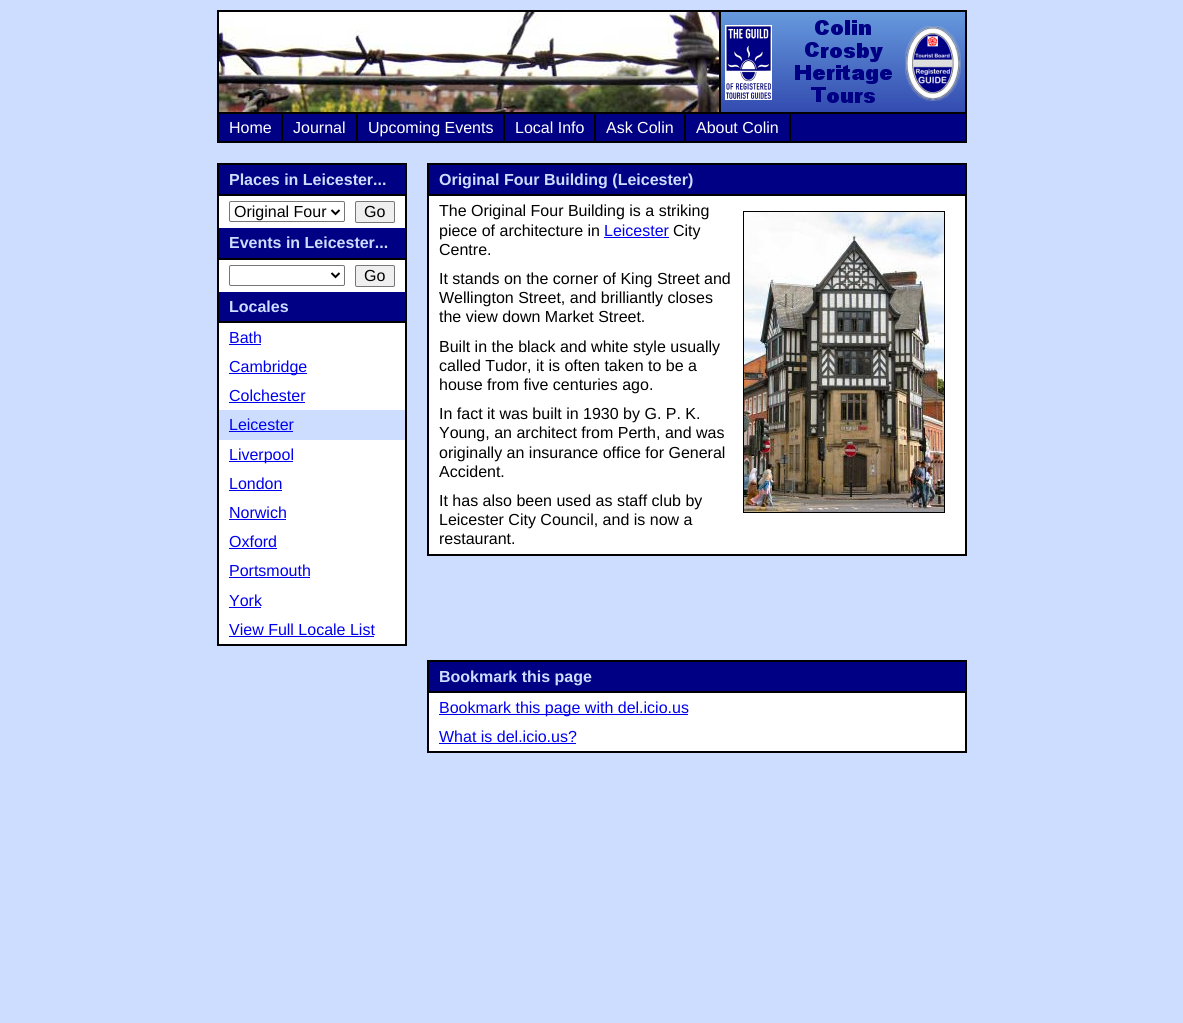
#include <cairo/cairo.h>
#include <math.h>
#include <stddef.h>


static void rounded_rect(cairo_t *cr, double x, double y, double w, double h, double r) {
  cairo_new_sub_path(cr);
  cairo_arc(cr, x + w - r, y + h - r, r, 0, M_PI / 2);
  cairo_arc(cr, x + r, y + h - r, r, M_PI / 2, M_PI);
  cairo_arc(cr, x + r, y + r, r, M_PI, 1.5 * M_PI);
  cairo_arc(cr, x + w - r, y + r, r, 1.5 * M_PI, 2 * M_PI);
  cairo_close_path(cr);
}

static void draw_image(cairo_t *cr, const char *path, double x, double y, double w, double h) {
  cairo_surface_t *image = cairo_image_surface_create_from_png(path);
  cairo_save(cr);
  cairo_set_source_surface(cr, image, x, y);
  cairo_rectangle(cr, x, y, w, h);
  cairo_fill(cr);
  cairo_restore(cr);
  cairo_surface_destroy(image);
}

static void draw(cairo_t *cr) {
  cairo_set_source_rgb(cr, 204 / 255.0, 221 / 255.0, 1);
  cairo_paint(cr);
  draw_image(cr, "images/1.png", 219, 12, 500, 100);
  cairo_set_source_rgb(cr, 0, 0, 0);
  cairo_rectangle(cr, 217, 10, 750, 2);
  cairo_fill(cr);
  cairo_rectangle(cr, 965, 10, 2, 102);
  cairo_fill(cr);
  cairo_rectangle(cr, 217, 10, 2, 102);
  cairo_fill(cr);
  draw_image(cr, "images/2.png", 721, 12, 244, 100);
  cairo_rectangle(cr, 719, 12, 2, 100);
  cairo_fill(cr);
  cairo_rectangle(cr, 218, 113, 748, 29);
  cairo_stroke(cr);
  cairo_set_source_rgb(cr, 0, 0, 132 / 255.0);
  cairo_rectangle(cr, 219, 114, 746, 27);
  cairo_fill(cr);
  cairo_set_source_rgb(cr, 0, 0, 0);
  cairo_rectangle(cr, 281, 114, 2, 27);
  cairo_fill(cr);
  cairo_rectangle(cr, 356, 114, 2, 27);
  cairo_fill(cr);
  cairo_rectangle(cr, 503, 114, 2, 27);
  cairo_fill(cr);
  cairo_rectangle(cr, 594, 114, 2, 27);
  cairo_fill(cr);
  cairo_rectangle(cr, 684, 114, 2, 27);
  cairo_fill(cr);
  cairo_rectangle(cr, 789, 114, 2, 27);
  cairo_fill(cr);
  cairo_rectangle(cr, 218, 164, 188, 481);
  cairo_stroke(cr);
  cairo_set_source_rgb(cr, 0, 0, 132 / 255.0);
  cairo_rectangle(cr, 219, 165, 186, 29);
  cairo_fill(cr);
  cairo_set_source_rgb(cr, 0, 0, 0);
  cairo_rectangle(cr, 219, 194, 186, 2);
  cairo_fill(cr);
  cairo_set_source_rgb(cr, 1, 1, 1);
  cairo_rectangle(cr, 219, 196, 186, 32);
  cairo_fill(cr);
  rounded_rect(cr, 229.5, 201.5, 115, 20, 1.5);
  cairo_set_source_rgb(cr, 118 / 255.0, 118 / 255.0, 118 / 255.0);
  cairo_set_line_width(cr, 1);
  cairo_stroke(cr);
  cairo_new_path(cr);
  cairo_move_to(cr, 331.5, 210);
  cairo_line_to(cr, 335.5, 214);
  cairo_line_to(cr, 339.5, 210);
  cairo_set_source_rgb(cr, 0, 0, 0);
  cairo_set_line_width(cr, 2);
  cairo_stroke(cr);
  cairo_set_source_rgb(cr, 239 / 255.0, 239 / 255.0, 239 / 255.0);
  rounded_rect(cr, 355.5, 201.5, 39, 21, 1.5);
  cairo_fill_preserve(cr);
  cairo_set_source_rgb(cr, 118 / 255.0, 118 / 255.0, 118 / 255.0);
  cairo_set_line_width(cr, 1);
  cairo_stroke(cr);
  cairo_set_source_rgb(cr, 0, 0, 132 / 255.0);
  cairo_rectangle(cr, 219, 228, 186, 30);
  cairo_fill(cr);
  cairo_set_source_rgb(cr, 0, 0, 0);
  cairo_rectangle(cr, 219, 258, 186, 2);
  cairo_fill(cr);
  cairo_set_source_rgb(cr, 1, 1, 1);
  cairo_rectangle(cr, 219, 260, 186, 32);
  cairo_fill(cr);
  rounded_rect(cr, 229.5, 265.5, 115, 20, 1.5);
  cairo_set_source_rgb(cr, 118 / 255.0, 118 / 255.0, 118 / 255.0);
  cairo_stroke(cr);
  cairo_new_path(cr);
  cairo_move_to(cr, 331.5, 273);
  cairo_line_to(cr, 335.5, 277);
  cairo_line_to(cr, 339.5, 273);
  cairo_set_source_rgb(cr, 0, 0, 0);
  cairo_set_line_width(cr, 2);
  cairo_stroke(cr);
  cairo_set_source_rgb(cr, 239 / 255.0, 239 / 255.0, 239 / 255.0);
  rounded_rect(cr, 355.5, 265.5, 39, 21, 1.5);
  cairo_fill_preserve(cr);
  cairo_set_source_rgb(cr, 118 / 255.0, 118 / 255.0, 118 / 255.0);
  cairo_set_line_width(cr, 1);
  cairo_stroke(cr);
  cairo_set_source_rgb(cr, 0, 0, 132 / 255.0);
  cairo_rectangle(cr, 219, 292, 186, 29);
  cairo_fill(cr);
  cairo_set_source_rgb(cr, 0, 0, 0);
  cairo_rectangle(cr, 219, 321, 186, 2);
  cairo_fill(cr);
  cairo_set_source_rgb(cr, 1, 1, 1);
  cairo_rectangle(cr, 219, 323, 186, 321);
  cairo_fill(cr);
  cairo_set_source_rgb(cr, 0, 0, 238 / 255.0);
  cairo_rectangle(cr, 229, 344, 32, 1);
  cairo_fill(cr);
  cairo_rectangle(cr, 229, 373, 78, 1);
  cairo_fill(cr);
  cairo_rectangle(cr, 229, 402, 76, 1);
  cairo_fill(cr);
  cairo_set_source_rgb(cr, 204 / 255.0, 221 / 255.0, 1);
  cairo_rectangle(cr, 219, 410, 186, 30);
  cairo_fill(cr);
  cairo_set_source_rgb(cr, 0, 0, 238 / 255.0);
  cairo_rectangle(cr, 229, 431, 64, 1);
  cairo_fill(cr);
  cairo_rectangle(cr, 229, 461, 64, 1);
  cairo_fill(cr);
  cairo_rectangle(cr, 229, 490, 53, 1);
  cairo_fill(cr);
  cairo_rectangle(cr, 229, 519, 57, 1);
  cairo_fill(cr);
  cairo_rectangle(cr, 229, 548, 48, 1);
  cairo_fill(cr);
  cairo_rectangle(cr, 229, 577, 81, 1);
  cairo_fill(cr);
  cairo_rectangle(cr, 229, 607, 32, 1);
  cairo_fill(cr);
  cairo_rectangle(cr, 229, 636, 145, 1);
  cairo_fill(cr);
  cairo_set_source_rgb(cr, 1, 1, 1);
  cairo_rectangle(cr, 429, 196, 536, 358);
  cairo_fill(cr);
  cairo_rectangle(cr, 428, 164, 538, 391);
  cairo_set_source_rgb(cr, 0, 0, 0);
  cairo_set_line_width(cr, 2);
  cairo_stroke(cr);
  cairo_set_source_rgb(cr, 0, 0, 132 / 255.0);
  cairo_rectangle(cr, 429, 165, 536, 29);
  cairo_fill(cr);
  cairo_set_source_rgb(cr, 0, 0, 0);
  cairo_rectangle(cr, 429, 194, 536, 2);
  cairo_fill(cr);
  cairo_rectangle(cr, 743.5, 211.5, 201, 301);
  cairo_set_line_width(cr, 1);
  cairo_stroke(cr);
  draw_image(cr, "images/3.png", 744, 212, 200, 300);
  cairo_set_source_rgb(cr, 0, 0, 238 / 255.0);
  cairo_rectangle(cr, 604, 237, 65, 1);
  cairo_fill(cr);
  cairo_set_source_rgb(cr, 1, 1, 1);
  cairo_rectangle(cr, 429, 693, 536, 58);
  cairo_fill(cr);
  cairo_rectangle(cr, 428, 661, 538, 91);
  cairo_set_source_rgb(cr, 0, 0, 0);
  cairo_set_line_width(cr, 2);
  cairo_stroke(cr);
  cairo_set_source_rgb(cr, 0, 0, 132 / 255.0);
  cairo_rectangle(cr, 429, 662, 536, 29);
  cairo_fill(cr);
  cairo_set_source_rgb(cr, 0, 0, 0);
  cairo_rectangle(cr, 429, 691, 536, 2);
  cairo_fill(cr);
  cairo_set_source_rgb(cr, 0, 0, 238 / 255.0);
  cairo_rectangle(cr, 439, 714, 249, 1);
  cairo_fill(cr);
  cairo_rectangle(cr, 439, 743, 137, 1);
  cairo_fill(cr);
  cairo_select_font_face(cr, "Liberation Sans", CAIRO_FONT_SLANT_NORMAL, CAIRO_FONT_WEIGHT_NORMAL);
  cairo_set_font_size(cr, 16);
  cairo_set_source_rgb(cr, 1, 1, 1);
  cairo_move_to(cr, 229, 133);
  cairo_show_text(cr, "Home");
  cairo_move_to(cr, 293, 133);
  cairo_show_text(cr, "Journal");
  cairo_move_to(cr, 368, 133);
  cairo_show_text(cr, "Upcoming Events");
  cairo_move_to(cr, 515, 133);
  cairo_show_text(cr, "Local Info");
  cairo_move_to(cr, 606, 133);
  cairo_show_text(cr, "Ask Colin");
  cairo_move_to(cr, 696, 133);
  cairo_show_text(cr, "About Colin");
  cairo_select_font_face(cr, "Liberation Sans", CAIRO_FONT_SLANT_NORMAL, CAIRO_FONT_WEIGHT_BOLD);
  cairo_set_source_rgb(cr, 204 / 255.0, 221 / 255.0, 1);
  cairo_move_to(cr, 229, 185);
  cairo_show_text(cr, "Places in Leicester...");
  cairo_select_font_face(cr, "Liberation Sans", CAIRO_FONT_SLANT_NORMAL, CAIRO_FONT_WEIGHT_NORMAL);
  cairo_set_source_rgb(cr, 0, 0, 0);
  cairo_move_to(cr, 234, 217);
  cairo_show_text(cr, "Original Four");
  cairo_move_to(cr, 364, 217);
  cairo_show_text(cr, "Go");
  cairo_select_font_face(cr, "Liberation Sans", CAIRO_FONT_SLANT_NORMAL, CAIRO_FONT_WEIGHT_BOLD);
  cairo_set_source_rgb(cr, 204 / 255.0, 221 / 255.0, 1);
  cairo_move_to(cr, 229, 248);
  cairo_show_text(cr, "Events in Leicester...");
  cairo_select_font_face(cr, "Liberation Sans", CAIRO_FONT_SLANT_NORMAL, CAIRO_FONT_WEIGHT_NORMAL);
  cairo_set_source_rgb(cr, 0, 0, 0);
  cairo_move_to(cr, 364, 281);
  cairo_show_text(cr, "Go");
  cairo_select_font_face(cr, "Liberation Sans", CAIRO_FONT_SLANT_NORMAL, CAIRO_FONT_WEIGHT_BOLD);
  cairo_set_source_rgb(cr, 204 / 255.0, 221 / 255.0, 1);
  cairo_move_to(cr, 229, 312);
  cairo_show_text(cr, "Locales");
  cairo_select_font_face(cr, "Liberation Sans", CAIRO_FONT_SLANT_NORMAL, CAIRO_FONT_WEIGHT_NORMAL);
  cairo_set_source_rgb(cr, 0, 0, 238 / 255.0);
  cairo_move_to(cr, 229, 343);
  cairo_show_text(cr, "Bath");
  cairo_move_to(cr, 229, 372);
  cairo_show_text(cr, "Cambridge");
  cairo_move_to(cr, 229, 401);
  cairo_show_text(cr, "Colchester");
  cairo_move_to(cr, 229, 430);
  cairo_show_text(cr, "Leicester");
  cairo_move_to(cr, 229, 460);
  cairo_show_text(cr, "Liverpool");
  cairo_move_to(cr, 229, 489);
  cairo_show_text(cr, "London");
  cairo_move_to(cr, 229, 518);
  cairo_show_text(cr, "Norwich");
  cairo_move_to(cr, 229, 547);
  cairo_show_text(cr, "Oxford");
  cairo_move_to(cr, 229, 576);
  cairo_show_text(cr, "Portsmouth");
  cairo_move_to(cr, 229, 606);
  cairo_show_text(cr, "York");
  cairo_move_to(cr, 229, 635);
  cairo_show_text(cr, "View Full Locale List");
  cairo_select_font_face(cr, "Liberation Sans", CAIRO_FONT_SLANT_NORMAL, CAIRO_FONT_WEIGHT_BOLD);
  cairo_set_source_rgb(cr, 204 / 255.0, 221 / 255.0, 1);
  cairo_move_to(cr, 439, 185);
  cairo_show_text(cr, "Original Four Building (Leicester)");
  cairo_select_font_face(cr, "Liberation Sans", CAIRO_FONT_SLANT_NORMAL, CAIRO_FONT_WEIGHT_NORMAL);
  cairo_set_source_rgb(cr, 0, 0, 0);
  cairo_move_to(cr, 439, 216);
  cairo_show_text(cr, "The Original Four Building is a striking");
  cairo_move_to(cr, 439, 236);
  cairo_show_text(cr, "piece of architecture in");
  cairo_set_source_rgb(cr, 0, 0, 238 / 255.0);
  cairo_move_to(cr, 604, 236);
  cairo_show_text(cr, "Leicester");
  cairo_set_source_rgb(cr, 0, 0, 0);
  cairo_move_to(cr, 673, 236);
  cairo_show_text(cr, "City");
  cairo_move_to(cr, 439, 255);
  cairo_show_text(cr, "Centre.");
  cairo_move_to(cr, 439, 284);
  cairo_show_text(cr, "It stands on the corner of King Street and");
  cairo_move_to(cr, 439, 303);
  cairo_show_text(cr, "Wellington Street, and brilliantly closes");
  cairo_move_to(cr, 439, 322);
  cairo_show_text(cr, "the view down Market Street.");
  cairo_move_to(cr, 439, 352);
  cairo_show_text(cr, "Built in the black and white style usually");
  cairo_move_to(cr, 439, 371);
  cairo_show_text(cr, "called Tudor, it is often taken to be a");
  cairo_move_to(cr, 439, 390);
  cairo_show_text(cr, "house from five centuries ago.");
  cairo_move_to(cr, 439, 419);
  cairo_show_text(cr, "In fact it was built in 1930 by G. P. K.");
  cairo_move_to(cr, 439, 438);
  cairo_show_text(cr, "Young, an architect from Perth, and was");
  cairo_move_to(cr, 439, 458);
  cairo_show_text(cr, "originally an insurance office for General");
  cairo_move_to(cr, 439, 477);
  cairo_show_text(cr, "Accident.");
  cairo_move_to(cr, 439, 506);
  cairo_show_text(cr, "It has also been used as staff club by");
  cairo_move_to(cr, 439, 525);
  cairo_show_text(cr, "Leicester City Council, and is now a");
  cairo_move_to(cr, 439, 544);
  cairo_show_text(cr, "restaurant.");
  cairo_select_font_face(cr, "Liberation Sans", CAIRO_FONT_SLANT_NORMAL, CAIRO_FONT_WEIGHT_BOLD);
  cairo_set_source_rgb(cr, 204 / 255.0, 221 / 255.0, 1);
  cairo_move_to(cr, 439, 682);
  cairo_show_text(cr, "Bookmark this page");
  cairo_select_font_face(cr, "Liberation Sans", CAIRO_FONT_SLANT_NORMAL, CAIRO_FONT_WEIGHT_NORMAL);
  cairo_set_source_rgb(cr, 0, 0, 238 / 255.0);
  cairo_move_to(cr, 439, 713);
  cairo_show_text(cr, "Bookmark this page with del.icio.us");
  cairo_move_to(cr, 439, 742);
  cairo_show_text(cr, "What is del.icio.us?");
}

int main(void) {
  cairo_surface_t *surface = cairo_image_surface_create(CAIRO_FORMAT_RGB24, 1183, 1023);
  cairo_t *cr = cairo_create(surface);
  cairo_font_options_t *options = cairo_font_options_create();
  cairo_font_options_set_hint_metrics(options, CAIRO_HINT_METRICS_OFF);
  cairo_font_options_set_hint_style(options, CAIRO_HINT_STYLE_NONE);
  cairo_set_font_options(cr, options);
  cairo_set_miter_limit(cr, 4);
  draw(cr);
  cairo_surface_write_to_png(surface, "out.png");
  cairo_font_options_destroy(options);
  cairo_destroy(cr);
  cairo_surface_destroy(surface);
  return 0;
}
